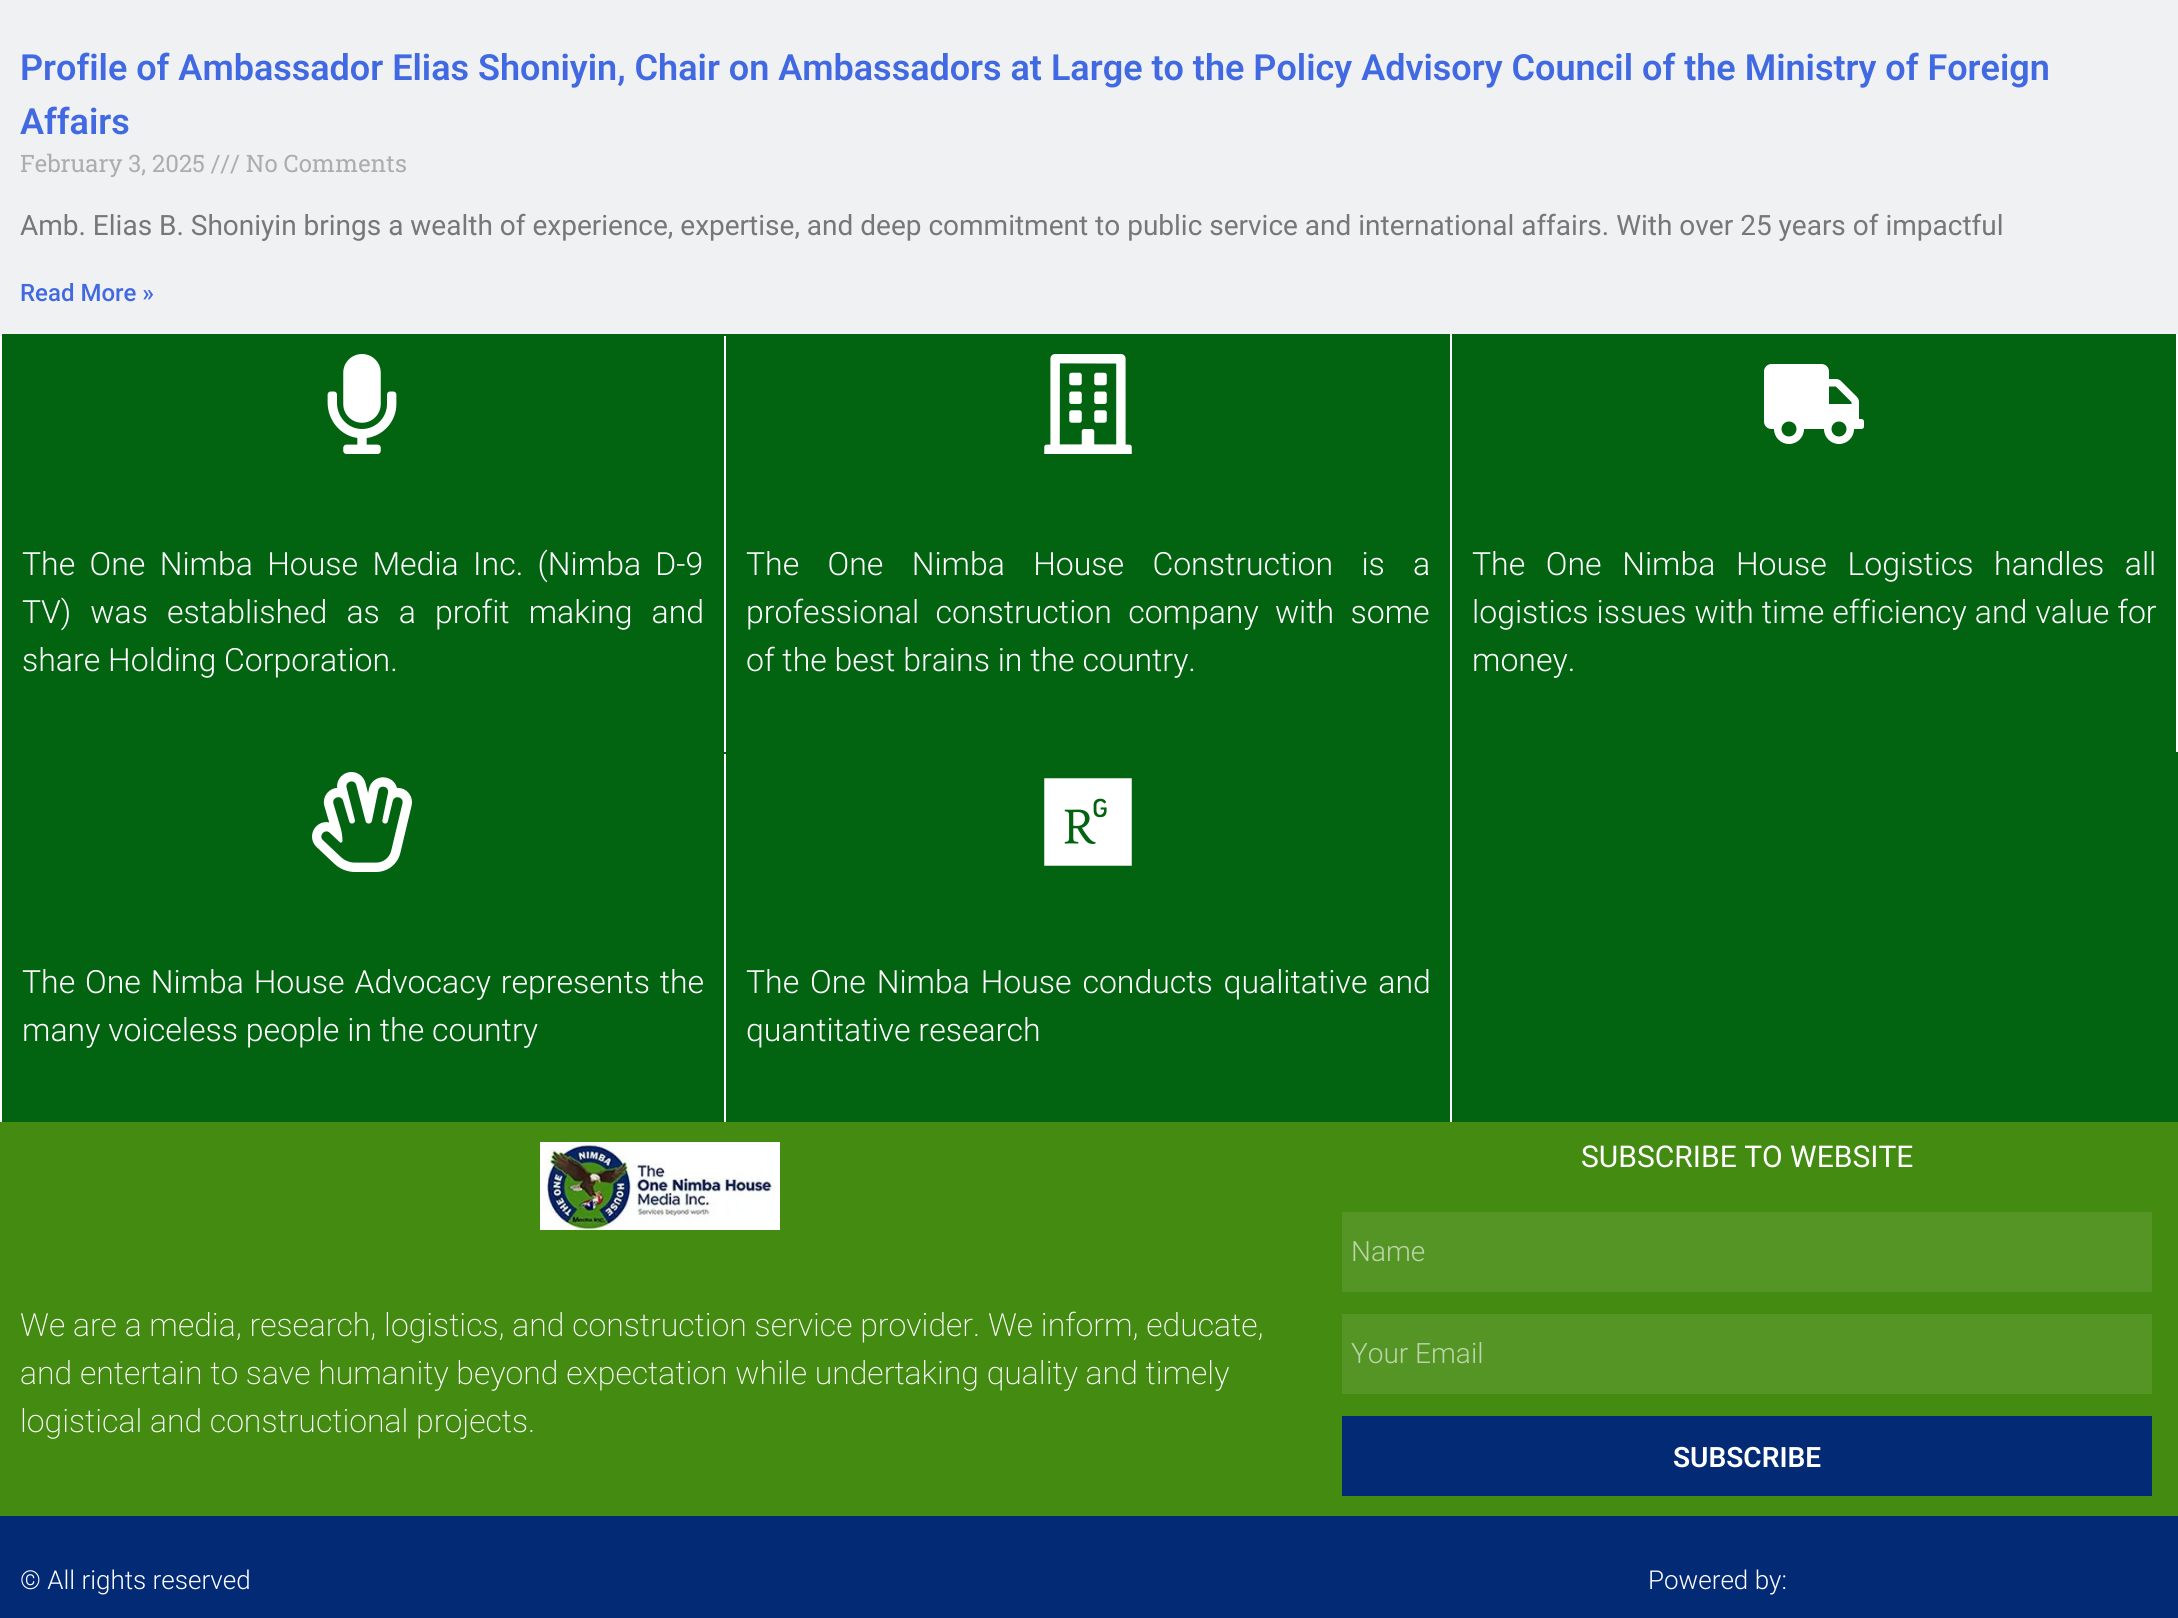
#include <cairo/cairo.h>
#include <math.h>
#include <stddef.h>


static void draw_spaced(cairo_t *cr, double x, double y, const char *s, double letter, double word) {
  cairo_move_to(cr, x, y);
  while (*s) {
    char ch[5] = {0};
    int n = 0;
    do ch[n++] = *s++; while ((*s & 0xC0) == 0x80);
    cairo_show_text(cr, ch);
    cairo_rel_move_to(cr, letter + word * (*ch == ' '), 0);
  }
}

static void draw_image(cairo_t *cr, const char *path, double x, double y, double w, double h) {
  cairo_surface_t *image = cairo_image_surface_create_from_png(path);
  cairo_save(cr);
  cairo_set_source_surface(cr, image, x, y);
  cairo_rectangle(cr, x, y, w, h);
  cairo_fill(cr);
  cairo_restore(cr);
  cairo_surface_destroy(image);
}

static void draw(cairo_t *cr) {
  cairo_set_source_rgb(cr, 240 / 255.0, 241 / 255.0, 242 / 255.0);
  cairo_paint(cr);
  cairo_set_source_rgb(cr, 2 / 255.0, 99 / 255.0, 17 / 255.0);
  cairo_rectangle(cr, 2, 334, 2174, 418);
  cairo_fill(cr);
  cairo_set_source_rgb(cr, 1, 1, 1);
  cairo_rectangle(cr, 724, 336, 2, 416);
  cairo_fill(cr);
  cairo_rectangle(cr, 0, 334, 2, 788);
  cairo_fill(cr);
  draw_image(cr, "images/1.png", 327, 354, 70, 100);
  cairo_rectangle(cr, 1450, 334, 2, 418);
  cairo_fill(cr);
  draw_image(cr, "images/2.png", 1044, 354, 88, 100);
  cairo_rectangle(cr, 2176, 334, 2, 418);
  cairo_fill(cr);
  draw_image(cr, "images/3.png", 1764, 364, 100, 80);
  cairo_set_source_rgb(cr, 2 / 255.0, 99 / 255.0, 17 / 255.0);
  cairo_rectangle(cr, 2, 752, 2176, 370);
  cairo_fill(cr);
  cairo_set_source_rgb(cr, 1, 1, 1);
  cairo_rectangle(cr, 724, 754, 2, 368);
  cairo_fill(cr);
  draw_image(cr, "images/4.png", 312, 772, 100, 100);
  cairo_rectangle(cr, 1450, 752, 2, 370);
  cairo_fill(cr);
  draw_image(cr, "images/5.png", 1044, 778, 88, 88);
  cairo_set_source_rgb(cr, 68 / 255.0, 139 / 255.0, 17 / 255.0);
  cairo_rectangle(cr, 0, 1122, 2178, 394);
  cairo_fill(cr);
  draw_image(cr, "images/6.png", 540, 1142, 240, 88);
  cairo_set_source_rgb(cr, 85 / 255.0, 149 / 255.0, 38 / 255.0);
  cairo_rectangle(cr, 1342, 1212, 810, 80);
  cairo_fill(cr);
  cairo_rectangle(cr, 1342, 1314, 810, 80);
  cairo_fill(cr);
  cairo_set_source_rgb(cr, 3 / 255.0, 42 / 255.0, 117 / 255.0);
  cairo_rectangle(cr, 1342, 1416, 810, 80);
  cairo_fill(cr);
  cairo_rectangle(cr, 0, 1516, 2178, 102);
  cairo_fill(cr);
  cairo_select_font_face(cr, "Roboto SemiBold", CAIRO_FONT_SLANT_NORMAL, CAIRO_FONT_WEIGHT_NORMAL);
  cairo_set_font_size(cr, 36);
  cairo_set_source_rgb(cr, 65 / 255.0, 105 / 255.0, 225 / 255.0);
  cairo_move_to(cr, 20, 80);
  cairo_show_text(cr, "Profile of Ambassador Elias Shoniyin, Chair on Ambassadors at Large to the Policy Advisory Council of the Ministry of Foreign");
  cairo_move_to(cr, 20, 134);
  cairo_show_text(cr, "Affairs");
  cairo_select_font_face(cr, "Roboto Slab", CAIRO_FONT_SLANT_NORMAL, CAIRO_FONT_WEIGHT_NORMAL);
  cairo_set_font_size(cr, 24);
  cairo_set_source_rgb(cr, 173 / 255.0, 173 / 255.0, 173 / 255.0);
  cairo_move_to(cr, 20, 172);
  cairo_show_text(cr, "February 3, 2025 /// No Comments");
  cairo_select_font_face(cr, "Roboto", CAIRO_FONT_SLANT_NORMAL, CAIRO_FONT_WEIGHT_NORMAL);
  cairo_set_font_size(cr, 28);
  cairo_set_source_rgb(cr, 119 / 255.0, 119 / 255.0, 119 / 255.0);
  cairo_move_to(cr, 20, 235);
  cairo_show_text(cr, "Amb. Elias B. Shoniyin brings a wealth of experience, expertise, and deep commitment to public service and international affairs. With over 25 years of impactful");
  cairo_select_font_face(cr, "Roboto Medium", CAIRO_FONT_SLANT_NORMAL, CAIRO_FONT_WEIGHT_NORMAL);
  cairo_set_font_size(cr, 24);
  cairo_set_source_rgb(cr, 65 / 255.0, 105 / 255.0, 225 / 255.0);
  cairo_move_to(cr, 20, 301);
  cairo_show_text(cr, "Read More »");
  cairo_select_font_face(cr, "Roboto Light", CAIRO_FONT_SLANT_NORMAL, CAIRO_FONT_WEIGHT_NORMAL);
  cairo_set_font_size(cr, 32);
  cairo_set_source_rgb(cr, 1, 1, 1);
  draw_spaced(cr, 22, 575, "The One Nimba House Media Inc. (Nimba D-9", 0, 6.5);
  draw_spaced(cr, 22, 623, "TV) was established as a profit making and", 0, 11.25);
  cairo_move_to(cr, 22, 671);
  cairo_show_text(cr, "share Holding Corporation.");
  draw_spaced(cr, 746, 575, "The One Nimba House Construction is a", 0, 20.5);
  draw_spaced(cr, 746, 623, "professional construction company with some", 0, 8.5);
  cairo_move_to(cr, 746, 671);
  cairo_show_text(cr, "of the best brains in the country.");
  draw_spaced(cr, 1472, 575, "The One Nimba House Logistics handles all", 0, 12.75);
  draw_spaced(cr, 1472, 623, "logistics issues with time efficiency and value for", 0, 0.25);
  cairo_move_to(cr, 1472, 671);
  cairo_show_text(cr, "money.");
  draw_spaced(cr, 22, 993, "The One Nimba House Advocacy represents the", 0, 2);
  cairo_move_to(cr, 22, 1041);
  cairo_show_text(cr, "many voiceless people in the country");
  draw_spaced(cr, 746, 993, "The One Nimba House conducts qualitative and", 0, 3);
  cairo_move_to(cr, 746, 1041);
  cairo_show_text(cr, "quantitative research");
  cairo_select_font_face(cr, "Roboto ExtraLight", CAIRO_FONT_SLANT_NORMAL, CAIRO_FONT_WEIGHT_NORMAL);
  cairo_move_to(cr, 20, 1336);
  cairo_show_text(cr, "We are a media, research, logistics, and construction service provider. We inform, educate,");
  cairo_move_to(cr, 20, 1384);
  cairo_show_text(cr, "and entertain to save humanity beyond expectation while undertaking quality and timely");
  cairo_move_to(cr, 20, 1432);
  cairo_show_text(cr, "logistical and constructional projects.");
  cairo_select_font_face(cr, "Roboto", CAIRO_FONT_SLANT_NORMAL, CAIRO_FONT_WEIGHT_NORMAL);
  cairo_set_font_size(cr, 30);
  cairo_move_to(cr, 1581, 1167);
  cairo_show_text(cr, "SUBSCRIBE TO WEBSITE");
  cairo_select_font_face(cr, "Roboto Light", CAIRO_FONT_SLANT_NORMAL, CAIRO_FONT_WEIGHT_NORMAL);
  cairo_set_font_size(cr, 28);
  cairo_set_source_rgb(cr, 187 / 255.0, 213 / 255.0, 168 / 255.0);
  cairo_move_to(cr, 1351, 1261);
  cairo_show_text(cr, "Name");
  cairo_move_to(cr, 1351, 1363);
  cairo_show_text(cr, "Your Email");
  cairo_select_font_face(cr, "Roboto SemiBold", CAIRO_FONT_SLANT_NORMAL, CAIRO_FONT_WEIGHT_NORMAL);
  cairo_set_source_rgb(cr, 1, 1, 1);
  cairo_move_to(cr, 1673, 1467);
  cairo_show_text(cr, "SUBSCRIBE");
  cairo_select_font_face(cr, "Roboto Light", CAIRO_FONT_SLANT_NORMAL, CAIRO_FONT_WEIGHT_NORMAL);
  cairo_set_font_size(cr, 26);
  cairo_move_to(cr, 20, 1589);
  cairo_show_text(cr, "© All rights reserved");
  cairo_move_to(cr, 1648, 1589);
  cairo_show_text(cr, "Powered by:");
}

int main(void) {
  cairo_surface_t *surface = cairo_image_surface_create(CAIRO_FORMAT_RGB24, 2178, 1618);
  cairo_t *cr = cairo_create(surface);
  cairo_font_options_t *options = cairo_font_options_create();
  cairo_font_options_set_hint_metrics(options, CAIRO_HINT_METRICS_OFF);
  cairo_font_options_set_hint_style(options, CAIRO_HINT_STYLE_NONE);
  cairo_set_font_options(cr, options);
  cairo_set_miter_limit(cr, 4);
  draw(cr);
  cairo_surface_write_to_png(surface, "out.png");
  cairo_font_options_destroy(options);
  cairo_destroy(cr);
  cairo_surface_destroy(surface);
  return 0;
}
